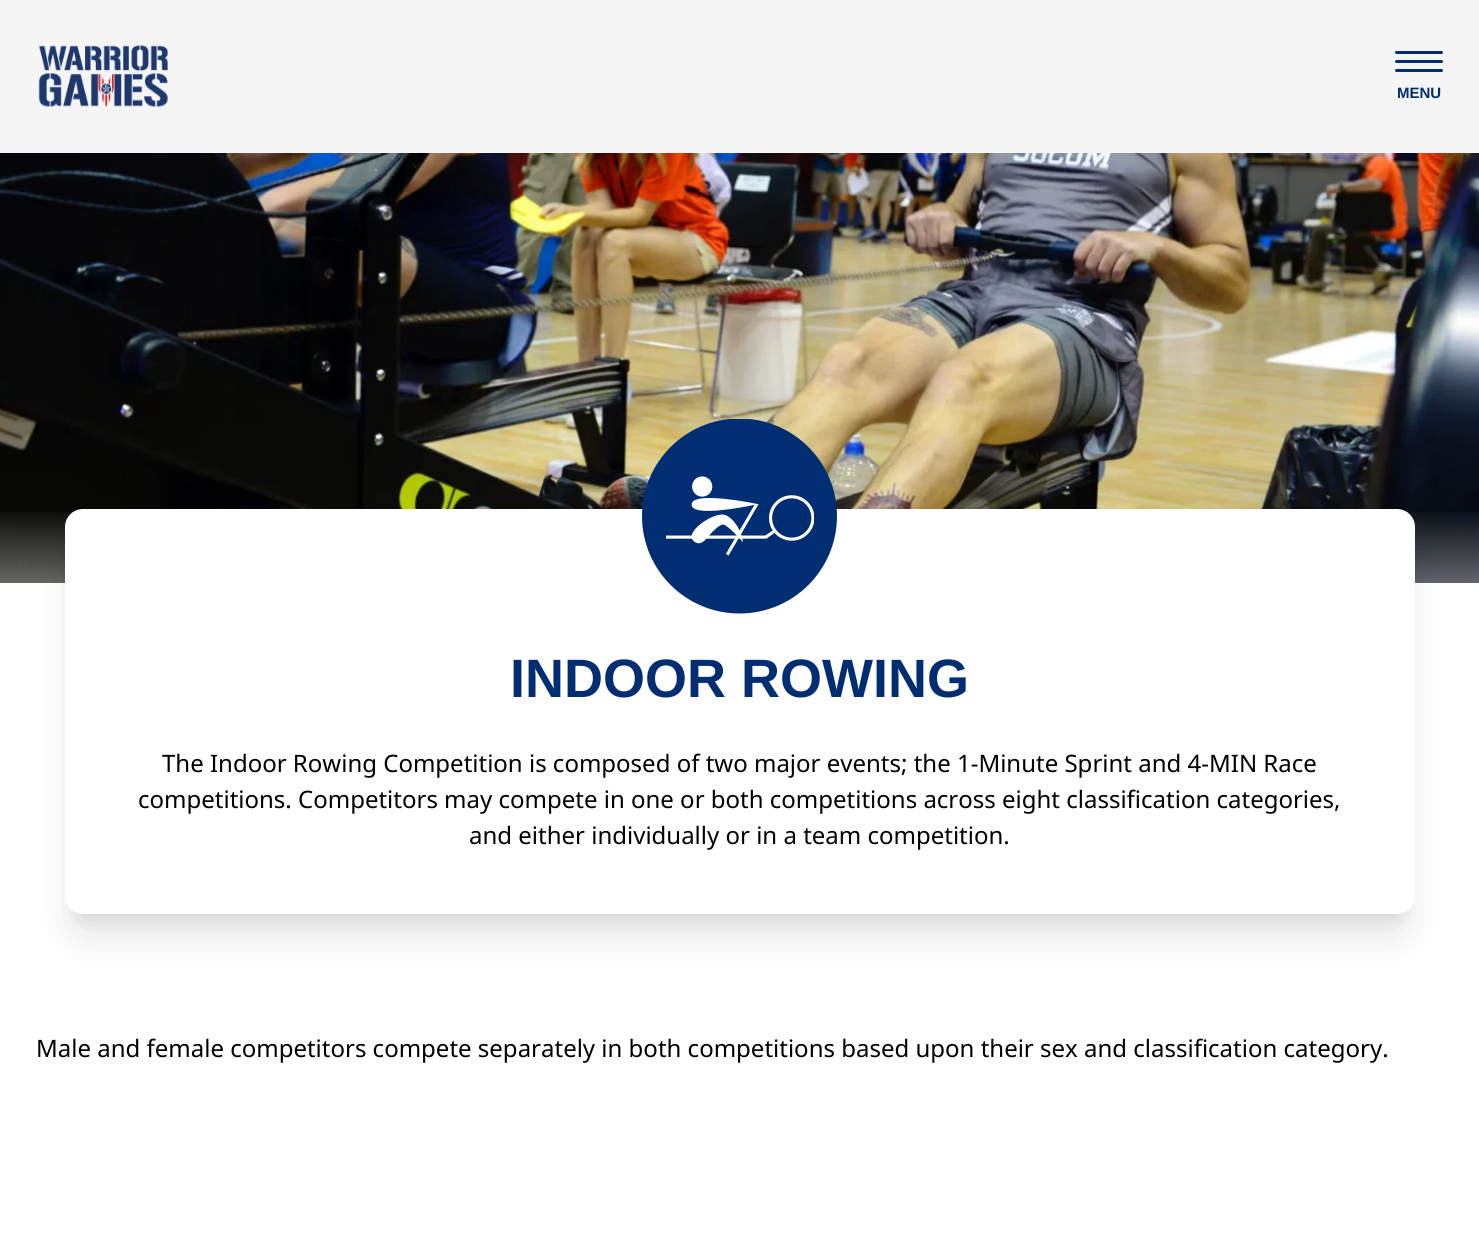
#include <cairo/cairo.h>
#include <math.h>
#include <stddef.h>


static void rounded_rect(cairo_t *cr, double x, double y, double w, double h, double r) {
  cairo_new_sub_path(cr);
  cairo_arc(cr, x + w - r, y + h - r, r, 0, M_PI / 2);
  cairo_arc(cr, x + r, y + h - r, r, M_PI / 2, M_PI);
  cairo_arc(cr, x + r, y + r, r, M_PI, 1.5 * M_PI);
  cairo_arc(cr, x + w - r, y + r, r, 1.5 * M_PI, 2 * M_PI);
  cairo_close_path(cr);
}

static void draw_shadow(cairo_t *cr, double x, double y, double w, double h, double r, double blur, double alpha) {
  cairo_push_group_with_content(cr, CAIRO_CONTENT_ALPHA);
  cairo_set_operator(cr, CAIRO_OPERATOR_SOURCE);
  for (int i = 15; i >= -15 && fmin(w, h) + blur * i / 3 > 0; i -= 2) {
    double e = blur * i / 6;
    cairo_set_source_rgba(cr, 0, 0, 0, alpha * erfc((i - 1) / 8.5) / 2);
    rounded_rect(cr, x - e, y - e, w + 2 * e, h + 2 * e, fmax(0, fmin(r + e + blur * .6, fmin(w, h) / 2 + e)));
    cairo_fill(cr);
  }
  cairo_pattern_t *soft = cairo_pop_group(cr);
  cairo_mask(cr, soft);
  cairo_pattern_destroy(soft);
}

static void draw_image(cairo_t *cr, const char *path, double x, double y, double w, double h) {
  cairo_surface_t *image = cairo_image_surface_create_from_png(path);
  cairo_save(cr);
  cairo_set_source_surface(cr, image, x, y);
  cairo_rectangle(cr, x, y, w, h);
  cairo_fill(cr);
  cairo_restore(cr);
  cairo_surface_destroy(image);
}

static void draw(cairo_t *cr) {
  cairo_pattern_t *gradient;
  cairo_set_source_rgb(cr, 1, 1, 1);
  cairo_paint(cr);
  cairo_set_source_rgb(cr, 245 / 255.0, 245 / 255.0, 245 / 255.0);
  cairo_rectangle(cr, 0, 0, 1479, 153);
  cairo_fill(cr);
  draw_image(cr, "images/1.png", 38, 45, 131, 62);
  cairo_set_source_rgb(cr, 1 / 255.0, 45 / 255.0, 115 / 255.0);
  rounded_rect(cr, 1395, 69, 48, 3, 1.5);
  cairo_fill(cr);
  rounded_rect(cr, 1395, 51, 48, 3, 1.5);
  cairo_fill(cr);
  rounded_rect(cr, 1395, 60, 48, 3, 1.5);
  cairo_fill(cr);
  draw_image(cr, "images/2.png", 0, 153, 1479, 430);
  gradient = cairo_pattern_create_linear(740, 508, 740, 914);
  cairo_pattern_add_color_stop_rgba(gradient, 0, 1, 1, 1, 0);
  cairo_pattern_add_color_stop_rgba(gradient, 0.5, 1, 1, 1, 1);
  cairo_set_source(cr, gradient);
  cairo_pattern_destroy(gradient);
  cairo_rectangle(cr, 0, 512, 1479, 71);
  cairo_fill(cr);
  cairo_set_source_rgb(cr, 0, 0, 0);
  draw_shadow(cr, 74, 530, 1332, 387, 9, 7.5, 0.1);
  draw_shadow(cr, 72, 546, 1335, 390, 11, 19, 0.1);
  cairo_set_source_rgb(cr, 1, 1, 1);
  rounded_rect(cr, 65, 509, 1350, 405, 18);
  cairo_fill(cr);
  draw_image(cr, "images/3.png", 642, 419, 195, 195);
  cairo_select_font_face(cr, "Liberation Sans", CAIRO_FONT_SLANT_NORMAL, CAIRO_FONT_WEIGHT_BOLD);
  cairo_set_font_size(cr, 15);
  cairo_set_source_rgb(cr, 1 / 255.0, 45 / 255.0, 115 / 255.0);
  cairo_move_to(cr, 1397, 98);
  cairo_show_text(cr, "MENU");
  cairo_set_font_size(cr, 54);
  cairo_move_to(cr, 510, 697);
  cairo_show_text(cr, "INDOOR ROWING");
  cairo_select_font_face(cr, "Noto Sans", CAIRO_FONT_SLANT_NORMAL, CAIRO_FONT_WEIGHT_NORMAL);
  cairo_set_font_size(cr, 24);
  cairo_set_source_rgb(cr, 0, 0, 0);
  cairo_move_to(cr, 162, 772);
  cairo_show_text(cr, "The Indoor Rowing Competition is composed of two major events; the 1-Minute Sprint and 4-MIN Race");
  cairo_move_to(cr, 138, 808);
  cairo_show_text(cr, "competitions. Competitors may compete in one or both competitions across eight classification categories,");
  cairo_move_to(cr, 469, 844);
  cairo_show_text(cr, "and either individually or in a team competition.");
  cairo_move_to(cr, 36, 1057);
  cairo_show_text(cr, "Male and female competitors compete separately in both competitions based upon their sex and classification category.");
}

int main(void) {
  cairo_surface_t *surface = cairo_image_surface_create(CAIRO_FORMAT_RGB24, 1479, 1251);
  cairo_t *cr = cairo_create(surface);
  cairo_font_options_t *options = cairo_font_options_create();
  cairo_font_options_set_hint_metrics(options, CAIRO_HINT_METRICS_OFF);
  cairo_font_options_set_hint_style(options, CAIRO_HINT_STYLE_NONE);
  cairo_set_font_options(cr, options);
  cairo_set_miter_limit(cr, 4);
  draw(cr);
  cairo_surface_write_to_png(surface, "out.png");
  cairo_font_options_destroy(options);
  cairo_destroy(cr);
  cairo_surface_destroy(surface);
  return 0;
}
